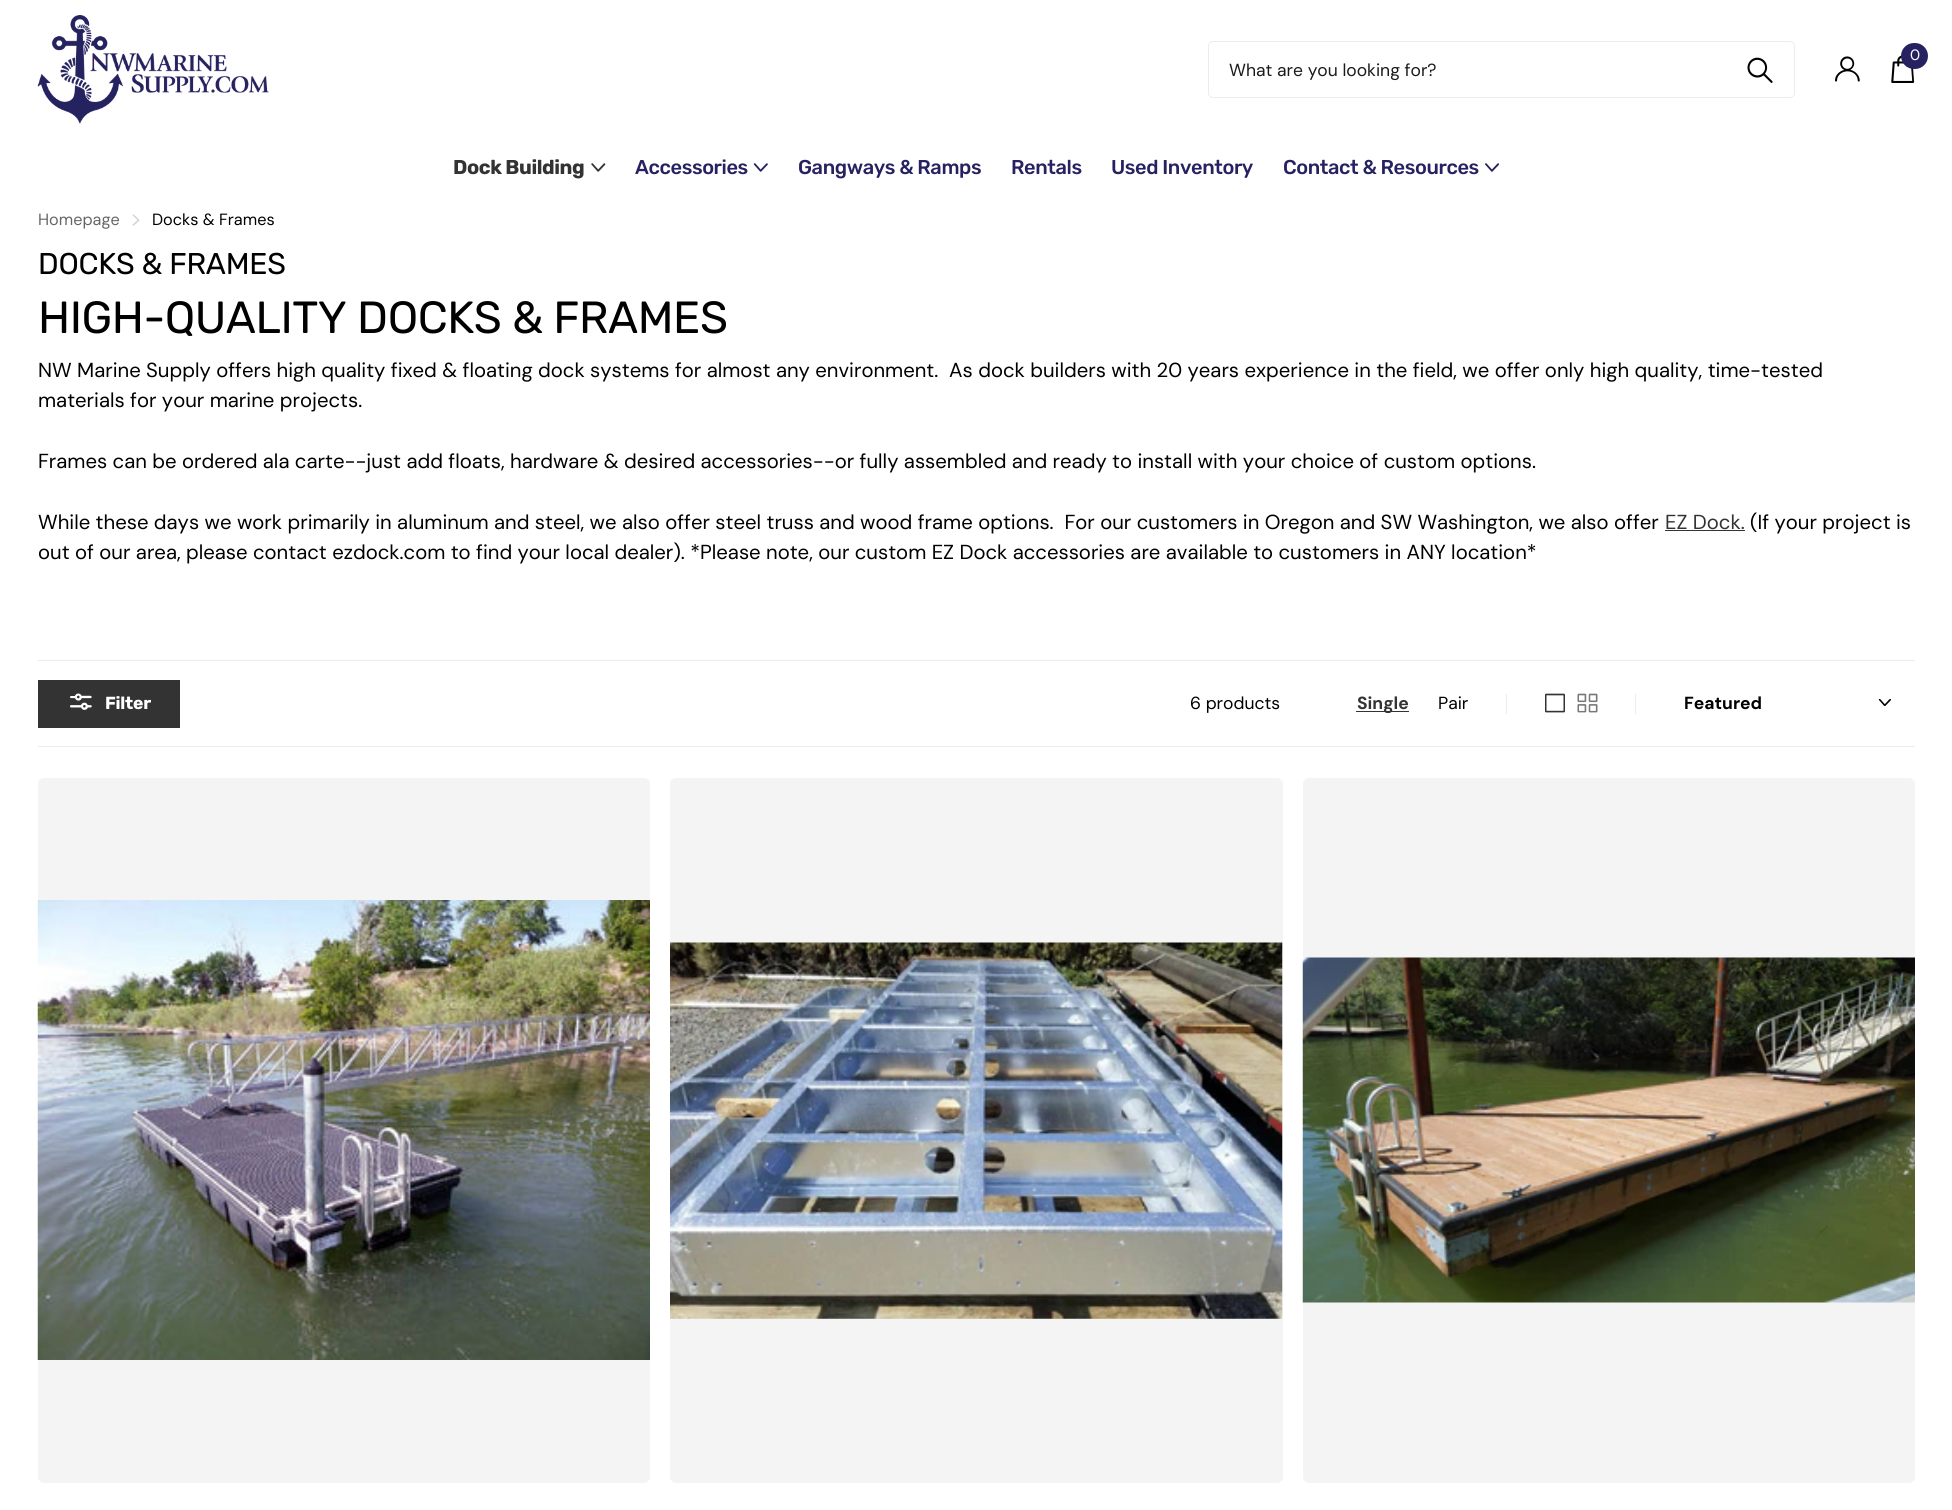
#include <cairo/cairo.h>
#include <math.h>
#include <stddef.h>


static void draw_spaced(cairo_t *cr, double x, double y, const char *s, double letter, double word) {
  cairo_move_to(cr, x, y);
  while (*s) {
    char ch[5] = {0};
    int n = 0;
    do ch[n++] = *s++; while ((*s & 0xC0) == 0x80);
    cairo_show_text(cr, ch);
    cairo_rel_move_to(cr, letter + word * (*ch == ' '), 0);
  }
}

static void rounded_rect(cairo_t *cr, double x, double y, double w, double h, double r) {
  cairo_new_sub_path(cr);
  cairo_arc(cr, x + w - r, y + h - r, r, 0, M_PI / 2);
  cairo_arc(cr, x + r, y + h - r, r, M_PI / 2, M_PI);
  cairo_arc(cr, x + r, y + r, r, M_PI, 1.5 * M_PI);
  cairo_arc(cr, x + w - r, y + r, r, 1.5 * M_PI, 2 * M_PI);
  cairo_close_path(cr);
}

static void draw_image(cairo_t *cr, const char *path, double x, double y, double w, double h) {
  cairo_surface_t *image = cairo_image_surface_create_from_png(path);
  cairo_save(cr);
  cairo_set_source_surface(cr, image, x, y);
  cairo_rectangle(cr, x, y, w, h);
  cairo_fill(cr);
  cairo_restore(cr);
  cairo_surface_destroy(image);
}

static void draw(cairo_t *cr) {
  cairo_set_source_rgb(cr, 1, 1, 1);
  cairo_paint(cr);
  draw_image(cr, "images/1.png", 37, 15, 232, 109);
  draw_image(cr, "images/2.png", 1835, 56, 25, 26);
  draw_image(cr, "images/3.png", 1891, 55, 24, 28);
  cairo_set_source_rgb(cr, 38 / 255.0, 34 / 255.0, 97 / 255.0);
  rounded_rect(cr, 1901, 43, 27, 26, 13);
  cairo_fill(cr);
  rounded_rect(cr, 1208.5, 41.5, 586, 56, 4.5);
  cairo_set_source_rgb(cr, 236 / 255.0, 236 / 255.0, 236 / 255.0);
  cairo_set_line_width(cr, 1);
  cairo_stroke(cr);
  draw_image(cr, "images/4.png", 1747, 57, 26, 26);
  draw_image(cr, "images/5.png", 591, 163, 15, 9);
  draw_image(cr, "images/6.png", 753, 163, 15, 9);
  draw_image(cr, "images/7.png", 1485, 163, 15, 9);
  draw_image(cr, "images/8.png", 132, 214, 8, 12);
  cairo_set_source_rgb(cr, 51 / 255.0, 51 / 255.0, 51 / 255.0);
  cairo_rectangle(cr, 1665, 530, 80, 1);
  cairo_fill(cr);
  cairo_set_source_rgb(cr, 236 / 255.0, 236 / 255.0, 236 / 255.0);
  cairo_rectangle(cr, 38, 660, 1877, 1);
  cairo_fill(cr);
  cairo_rectangle(cr, 38, 746, 1877, 1);
  cairo_fill(cr);
  cairo_set_source_rgb(cr, 51 / 255.0, 51 / 255.0, 51 / 255.0);
  cairo_rectangle(cr, 38, 680, 142, 48);
  cairo_fill(cr);
  draw_image(cr, "images/9.png", 70, 693, 22, 17);
  cairo_rectangle(cr, 1356, 711, 53, 1);
  cairo_fill(cr);
  cairo_set_source_rgb(cr, 236 / 255.0, 236 / 255.0, 236 / 255.0);
  cairo_rectangle(cr, 1506, 694, 1, 20);
  cairo_fill(cr);
  draw_image(cr, "images/10.png", 1545, 693, 20, 20);
  draw_image(cr, "images/11.png", 1577, 693, 21, 20);
  cairo_rectangle(cr, 1635, 694, 1, 20);
  cairo_fill(cr);
  draw_image(cr, "images/12.png", 1879, 699, 12, 7);
  cairo_set_source_rgb(cr, 244 / 255.0, 244 / 255.0, 244 / 255.0);
  rounded_rect(cr, 38, 778, 612, 705, 6);
  cairo_fill(cr);
  draw_image(cr, "images/13.png", 37, 900, 613, 460);
  rounded_rect(cr, 670, 778, 613, 705, 6);
  cairo_fill(cr);
  draw_image(cr, "images/14.png", 670, 942, 613, 377);
  rounded_rect(cr, 1303, 778, 612, 705, 6);
  cairo_fill(cr);
  draw_image(cr, "images/15.png", 1302, 957, 613, 346);
  cairo_select_font_face(cr, "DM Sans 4", CAIRO_FONT_SLANT_NORMAL, CAIRO_FONT_WEIGHT_NORMAL);
  cairo_set_font_size(cr, 15);
  cairo_set_source_rgb(cr, 1, 1, 1);
  cairo_move_to(cr, 1910, 60);
  cairo_show_text(cr, "0");
  cairo_select_font_face(cr, "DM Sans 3", CAIRO_FONT_SLANT_NORMAL, CAIRO_FONT_WEIGHT_NORMAL);
  cairo_set_font_size(cr, 17.5);
  cairo_set_source_rgb(cr, 26 / 255.0, 26 / 255.0, 26 / 255.0);
  cairo_move_to(cr, 1229, 76);
  cairo_show_text(cr, "What are you looking for?");
  cairo_select_font_face(cr, "Rubik", CAIRO_FONT_SLANT_NORMAL, CAIRO_FONT_WEIGHT_BOLD);
  cairo_set_font_size(cr, 20);
  cairo_set_source_rgb(cr, 51 / 255.0, 51 / 255.0, 51 / 255.0);
  draw_spaced(cr, 453, 174, "Dock Building", -0.4, 0);
  cairo_select_font_face(cr, "Rubik Medium", CAIRO_FONT_SLANT_NORMAL, CAIRO_FONT_WEIGHT_NORMAL);
  cairo_set_source_rgb(cr, 38 / 255.0, 34 / 255.0, 97 / 255.0);
  draw_spaced(cr, 635, 174, "Accessories", -0.4, 0);
  draw_spaced(cr, 798, 174, "Gangways & Ramps", -0.4, 0);
  draw_spaced(cr, 1011, 174, "Rentals", -0.4, 0);
  draw_spaced(cr, 1111, 174, "Used Inventory", -0.4, 0);
  draw_spaced(cr, 1283, 174, "Contact & Resources", -0.4, 0);
  cairo_select_font_face(cr, "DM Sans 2", CAIRO_FONT_SLANT_NORMAL, CAIRO_FONT_WEIGHT_NORMAL);
  cairo_set_font_size(cr, 16.25);
  cairo_set_source_rgb(cr, 102 / 255.0, 102 / 255.0, 102 / 255.0);
  cairo_move_to(cr, 38, 225);
  cairo_show_text(cr, "Homepage");
  cairo_set_source_rgb(cr, 0, 0, 0);
  cairo_move_to(cr, 152, 225);
  cairo_show_text(cr, "Docks & Frames");
  cairo_select_font_face(cr, "Rubik", CAIRO_FONT_SLANT_NORMAL, CAIRO_FONT_WEIGHT_NORMAL);
  cairo_set_font_size(cr, 30);
  draw_spaced(cr, 38, 274, "DOCKS & FRAMES", -0.25, 0);
  cairo_set_font_size(cr, 45);
  draw_spaced(cr, 38, 333, "HIGH-QUALITY DOCKS & FRAMES", -0.45, 0);
  cairo_select_font_face(cr, "DM Sans", CAIRO_FONT_SLANT_NORMAL, CAIRO_FONT_WEIGHT_NORMAL);
  cairo_set_font_size(cr, 20.3);
  cairo_move_to(cr, 38, 377);
  cairo_show_text(cr, "NW Marine Supply offers high quality fixed & floating dock systems for almost any environment.  As dock builders with 20 years experience in the field, we offer only high quality, time-tested");
  cairo_move_to(cr, 38, 407);
  cairo_show_text(cr, "materials for your marine projects.");
  cairo_move_to(cr, 38, 468);
  cairo_show_text(cr, "Frames can be ordered ala carte--just add floats, hardware & desired accessories--or fully assembled and ready to install with your choice of custom options.");
  cairo_move_to(cr, 38, 529);
  cairo_show_text(cr, "While these days we work primarily in aluminum and steel, we also offer steel truss and wood frame options.  For our customers in Oregon and SW Washington, we also offer");
  cairo_set_source_rgb(cr, 51 / 255.0, 51 / 255.0, 51 / 255.0);
  cairo_move_to(cr, 1665, 529);
  cairo_show_text(cr, "EZ Dock.");
  cairo_set_source_rgb(cr, 0, 0, 0);
  cairo_move_to(cr, 1750, 529);
  cairo_show_text(cr, "(If your project is");
  cairo_move_to(cr, 38, 559);
  cairo_show_text(cr, "out of our area, please contact ezdock.com to find your local dealer). *Please note, our custom EZ Dock accessories are available to customers in ANY location*");
  cairo_select_font_face(cr, "Rubik", CAIRO_FONT_SLANT_NORMAL, CAIRO_FONT_WEIGHT_BOLD);
  cairo_set_font_size(cr, 17.5);
  cairo_set_source_rgb(cr, 1, 1, 1);
  draw_spaced(cr, 105, 709, "Filter", -0.25, 0);
  cairo_select_font_face(cr, "DM Sans 3", CAIRO_FONT_SLANT_NORMAL, CAIRO_FONT_WEIGHT_NORMAL);
  cairo_set_source_rgb(cr, 0, 0, 0);
  cairo_move_to(cr, 1190, 709);
  cairo_show_text(cr, "6 products");
  cairo_select_font_face(cr, "DM Sans", CAIRO_FONT_SLANT_NORMAL, CAIRO_FONT_WEIGHT_BOLD);
  cairo_set_source_rgb(cr, 51 / 255.0, 51 / 255.0, 51 / 255.0);
  cairo_move_to(cr, 1357, 709);
  cairo_show_text(cr, "Single");
  cairo_select_font_face(cr, "DM Sans 3", CAIRO_FONT_SLANT_NORMAL, CAIRO_FONT_WEIGHT_NORMAL);
  cairo_set_source_rgb(cr, 0, 0, 0);
  cairo_move_to(cr, 1438, 709);
  cairo_show_text(cr, "Pair");
  cairo_select_font_face(cr, "DM Sans", CAIRO_FONT_SLANT_NORMAL, CAIRO_FONT_WEIGHT_BOLD);
  cairo_move_to(cr, 1684, 709);
  cairo_show_text(cr, "Featured");
}

int main(void) {
  cairo_surface_t *surface = cairo_image_surface_create(CAIRO_FORMAT_RGB24, 1952, 1510);
  cairo_t *cr = cairo_create(surface);
  cairo_font_options_t *options = cairo_font_options_create();
  cairo_font_options_set_hint_metrics(options, CAIRO_HINT_METRICS_OFF);
  cairo_font_options_set_hint_style(options, CAIRO_HINT_STYLE_NONE);
  cairo_set_font_options(cr, options);
  cairo_set_miter_limit(cr, 4);
  draw(cr);
  cairo_surface_write_to_png(surface, "out.png");
  cairo_font_options_destroy(options);
  cairo_destroy(cr);
  cairo_surface_destroy(surface);
  return 0;
}
